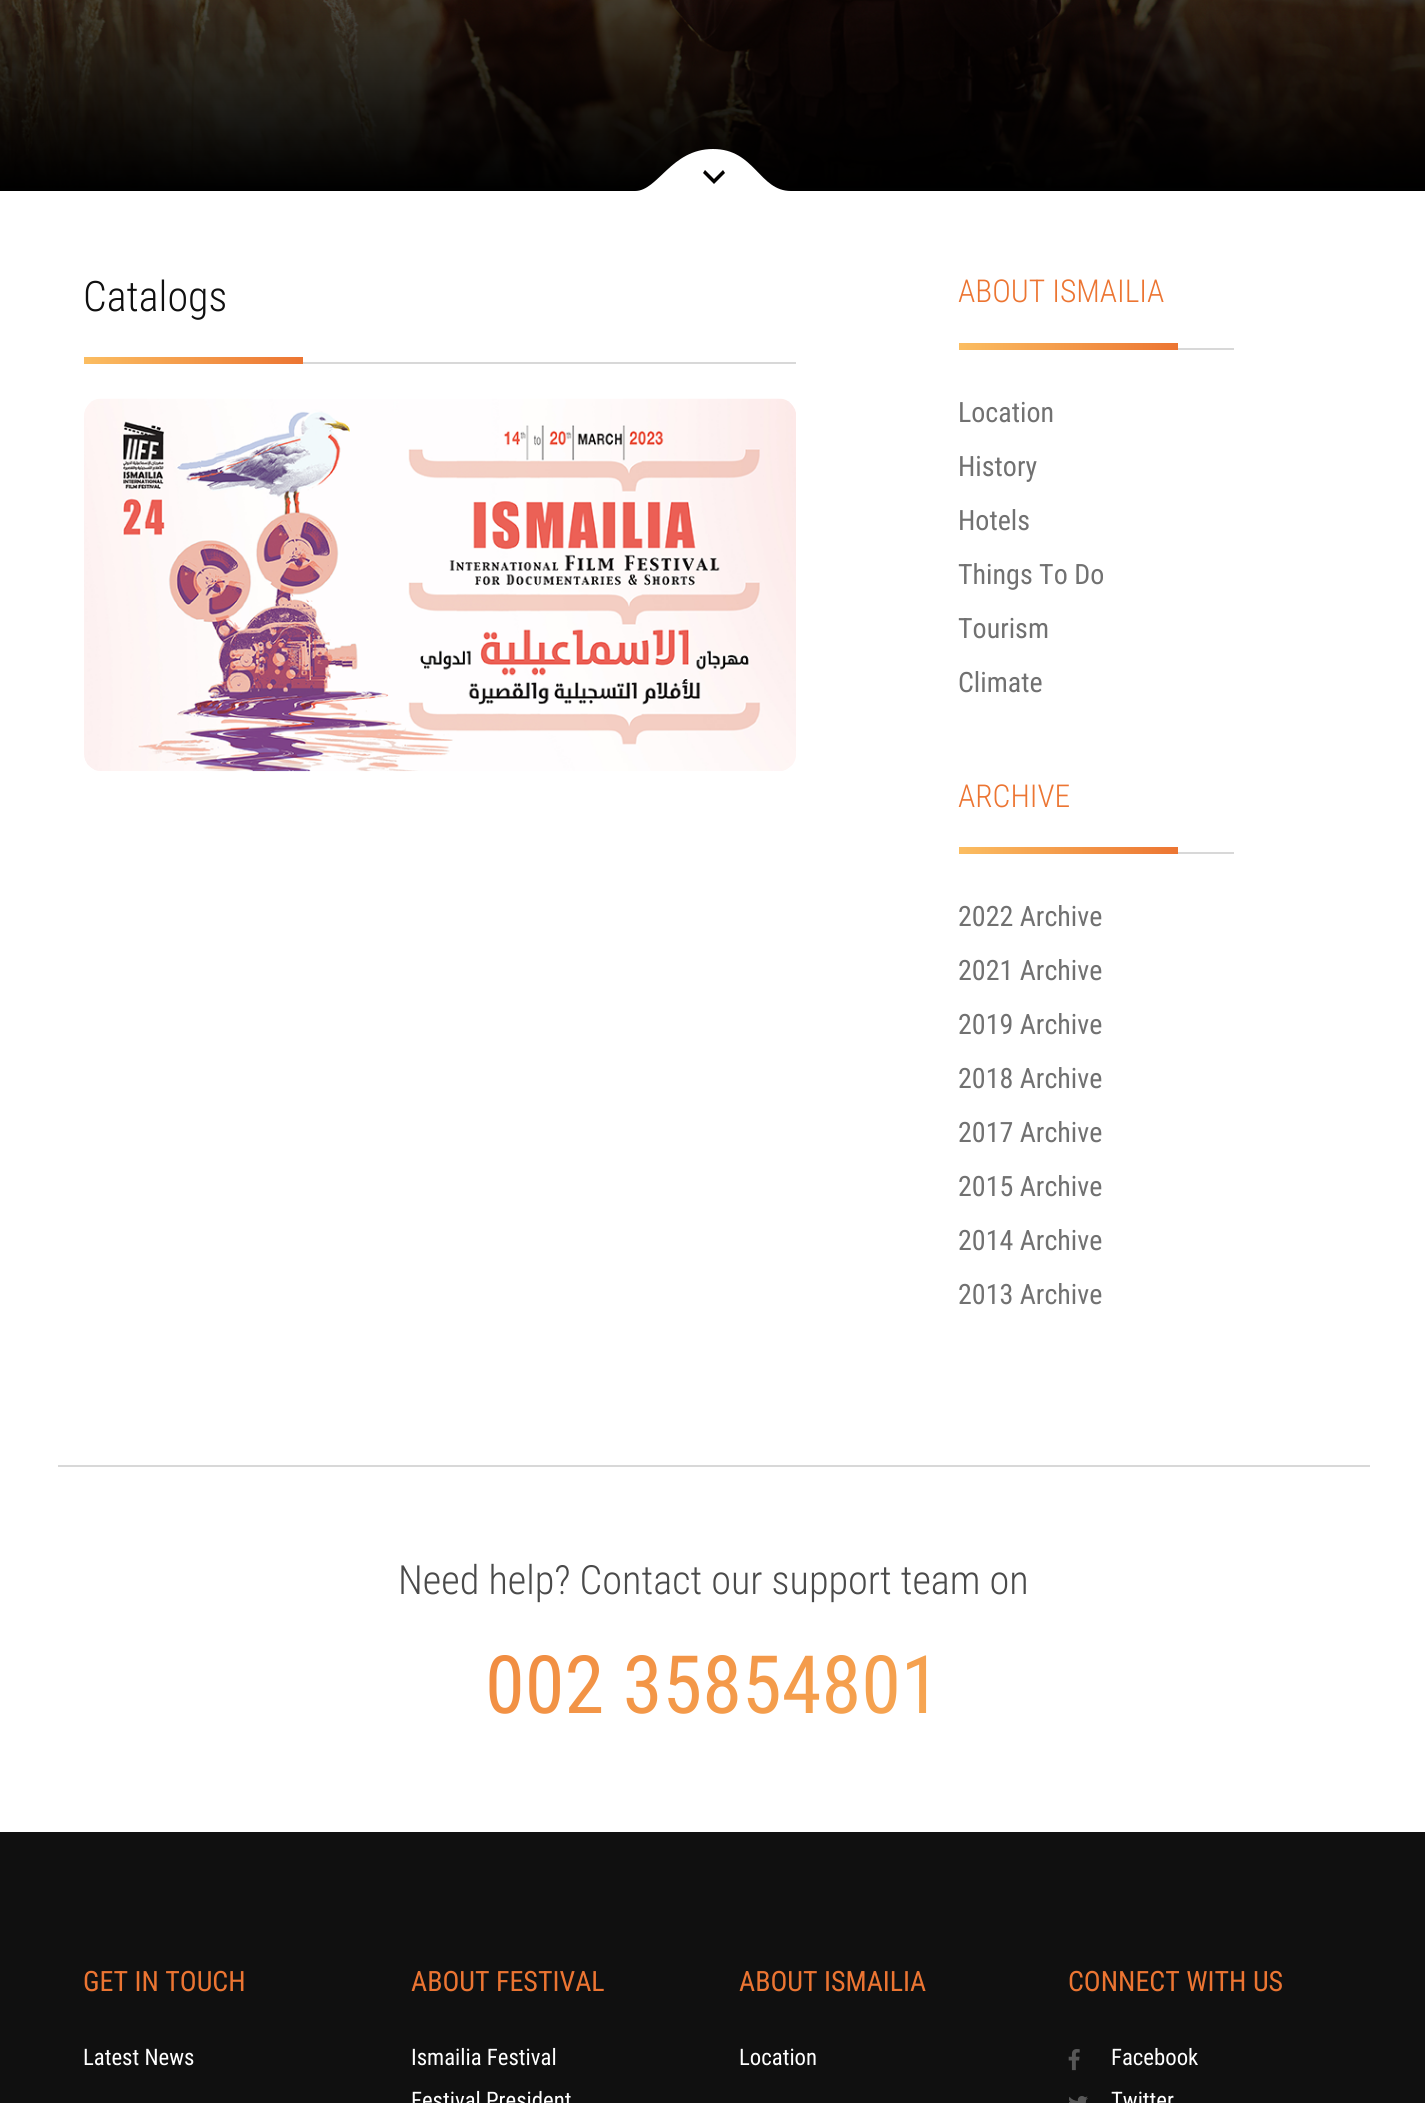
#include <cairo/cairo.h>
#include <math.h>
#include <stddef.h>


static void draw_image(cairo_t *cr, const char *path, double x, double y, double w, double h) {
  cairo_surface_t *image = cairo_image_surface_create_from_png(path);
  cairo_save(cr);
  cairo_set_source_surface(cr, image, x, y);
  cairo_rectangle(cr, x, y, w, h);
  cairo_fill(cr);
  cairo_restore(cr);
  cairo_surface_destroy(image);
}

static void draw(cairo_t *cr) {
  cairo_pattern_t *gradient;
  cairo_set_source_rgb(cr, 1, 1, 1);
  cairo_paint(cr);
  draw_image(cr, "images/1.png", 0, 0, 1425, 188);
  gradient = cairo_pattern_create_linear(713, 191, 713, -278);
  cairo_pattern_add_color_stop_rgba(gradient, 0, 0, 0, 0, 1);
  cairo_pattern_add_color_stop_rgba(gradient, 1, 0, 0, 0, 0);
  cairo_set_source(cr, gradient);
  cairo_pattern_destroy(gradient);
  cairo_rectangle(cr, 0, 0, 1425, 191);
  cairo_fill(cr);
  cairo_set_source_rgb(cr, 1, 1, 1);
  cairo_set_fill_rule(cr, CAIRO_FILL_RULE_EVEN_ODD);
  cairo_new_path(cr);
  cairo_move_to(cr, 635, 191);
  cairo_curve_to(cr, 658, 191, 671, 149, 713, 149);
  cairo_curve_to(cr, 755, 149, 759, 191, 791, 191);
  cairo_curve_to(cr, 815, 191, 610, 191, 635, 191);
  cairo_close_path(cr);
  cairo_move_to(cr, 705, 170);
  cairo_line_to(cr, 703, 173);
  cairo_line_to(cr, 714, 184);
  cairo_line_to(cr, 725, 173);
  cairo_line_to(cr, 723, 170);
  cairo_line_to(cr, 714, 179);
  cairo_close_path(cr);
  cairo_fill(cr);
  cairo_set_source_rgb(cr, 216 / 255.0, 216 / 255.0, 216 / 255.0);
  cairo_rectangle(cr, 303, 362, 493, 2);
  cairo_fill(cr);
  gradient = cairo_pattern_create_linear(84, 361, 303, 361);
  cairo_pattern_add_color_stop_rgba(gradient, 0, 251 / 255.0, 189 / 255.0, 97 / 255.0, 1);
  cairo_pattern_add_color_stop_rgba(gradient, 1, 236 / 255.0, 117 / 255.0, 50 / 255.0, 1);
  cairo_set_source(cr, gradient);
  cairo_pattern_destroy(gradient);
  cairo_rectangle(cr, 84, 357, 219, 7);
  cairo_fill(cr);
  draw_image(cr, "images/2.png", 84, 398, 712, 374);
  cairo_set_source_rgb(cr, 216 / 255.0, 216 / 255.0, 216 / 255.0);
  cairo_rectangle(cr, 1178, 348, 56, 2);
  cairo_fill(cr);
  gradient = cairo_pattern_create_linear(959, 347, 1178, 347);
  cairo_pattern_add_color_stop_rgba(gradient, 0, 251 / 255.0, 189 / 255.0, 97 / 255.0, 1);
  cairo_pattern_add_color_stop_rgba(gradient, 1, 236 / 255.0, 117 / 255.0, 50 / 255.0, 1);
  cairo_set_source(cr, gradient);
  cairo_pattern_destroy(gradient);
  cairo_rectangle(cr, 959, 343, 219, 7);
  cairo_fill(cr);
  cairo_set_source_rgb(cr, 216 / 255.0, 216 / 255.0, 216 / 255.0);
  cairo_rectangle(cr, 1178, 852, 56, 2);
  cairo_fill(cr);
  gradient = cairo_pattern_create_linear(959, 851, 1178, 851);
  cairo_pattern_add_color_stop_rgba(gradient, 0, 251 / 255.0, 189 / 255.0, 97 / 255.0, 1);
  cairo_pattern_add_color_stop_rgba(gradient, 1, 236 / 255.0, 117 / 255.0, 50 / 255.0, 1);
  cairo_set_source(cr, gradient);
  cairo_pattern_destroy(gradient);
  cairo_rectangle(cr, 959, 847, 219, 7);
  cairo_fill(cr);
  cairo_set_source_rgb(cr, 216 / 255.0, 216 / 255.0, 216 / 255.0);
  cairo_rectangle(cr, 58, 1465, 1312, 2);
  cairo_fill(cr);
  cairo_set_source_rgb(cr, 16 / 255.0, 16 / 255.0, 16 / 255.0);
  cairo_rectangle(cr, 0, 1832, 1425, 271);
  cairo_fill(cr);
  draw_image(cr, "images/3.png", 1068, 2049, 12, 22);
  draw_image(cr, "images/4.png", 1069, 2096, 19, 7);
  cairo_select_font_face(cr, "Roboto Condensed Light", CAIRO_FONT_SLANT_NORMAL, CAIRO_FONT_WEIGHT_NORMAL);
  cairo_set_font_size(cr, 42);
  cairo_move_to(cr, 83, 311);
  cairo_show_text(cr, "Catalogs");
  cairo_set_font_size(cr, 31.5);
  cairo_set_source_rgb(cr, 236 / 255.0, 117 / 255.0, 50 / 255.0);
  cairo_move_to(cr, 958, 302);
  cairo_show_text(cr, "ABOUT ISMAILIA");
  cairo_select_font_face(cr, "Roboto Condensed", CAIRO_FONT_SLANT_NORMAL, CAIRO_FONT_WEIGHT_NORMAL);
  cairo_set_font_size(cr, 28);
  cairo_set_source_rgb(cr, 113 / 255.0, 113 / 255.0, 113 / 255.0);
  cairo_move_to(cr, 958, 422);
  cairo_show_text(cr, "Location");
  cairo_move_to(cr, 958, 476);
  cairo_show_text(cr, "History");
  cairo_move_to(cr, 958, 530);
  cairo_show_text(cr, "Hotels");
  cairo_move_to(cr, 958, 584);
  cairo_show_text(cr, "Things To Do");
  cairo_move_to(cr, 958, 638);
  cairo_show_text(cr, "Tourism");
  cairo_move_to(cr, 958, 692);
  cairo_show_text(cr, "Climate");
  cairo_select_font_face(cr, "Roboto Condensed Light", CAIRO_FONT_SLANT_NORMAL, CAIRO_FONT_WEIGHT_NORMAL);
  cairo_set_font_size(cr, 31.5);
  cairo_set_source_rgb(cr, 236 / 255.0, 117 / 255.0, 50 / 255.0);
  cairo_move_to(cr, 958, 807);
  cairo_show_text(cr, "ARCHIVE");
  cairo_select_font_face(cr, "Roboto Condensed", CAIRO_FONT_SLANT_NORMAL, CAIRO_FONT_WEIGHT_NORMAL);
  cairo_set_font_size(cr, 28);
  cairo_set_source_rgb(cr, 113 / 255.0, 113 / 255.0, 113 / 255.0);
  cairo_move_to(cr, 958, 926);
  cairo_show_text(cr, "2022 Archive");
  cairo_move_to(cr, 958, 980);
  cairo_show_text(cr, "2021 Archive");
  cairo_move_to(cr, 958, 1034);
  cairo_show_text(cr, "2019 Archive");
  cairo_move_to(cr, 958, 1088);
  cairo_show_text(cr, "2018 Archive");
  cairo_move_to(cr, 958, 1142);
  cairo_show_text(cr, "2017 Archive");
  cairo_move_to(cr, 958, 1196);
  cairo_show_text(cr, "2015 Archive");
  cairo_move_to(cr, 958, 1250);
  cairo_show_text(cr, "2014 Archive");
  cairo_move_to(cr, 958, 1304);
  cairo_show_text(cr, "2013 Archive");
  cairo_select_font_face(cr, "Roboto Condensed Light", CAIRO_FONT_SLANT_NORMAL, CAIRO_FONT_WEIGHT_NORMAL);
  cairo_set_font_size(cr, 40.25);
  cairo_set_source_rgb(cr, 74 / 255.0, 74 / 255.0, 74 / 255.0);
  cairo_move_to(cr, 398, 1594);
  cairo_show_text(cr, "Need help? Contact our support team on");
  cairo_select_font_face(cr, "Roboto Condensed", CAIRO_FONT_SLANT_NORMAL, CAIRO_FONT_WEIGHT_NORMAL);
  cairo_set_font_size(cr, 80.5);
  gradient = cairo_pattern_create_linear(902, 2014, 524, 1359);
  cairo_pattern_add_color_stop_rgba(gradient, 0, 251 / 255.0, 189 / 255.0, 97 / 255.0, 1);
  cairo_pattern_add_color_stop_rgba(gradient, 1, 236 / 255.0, 117 / 255.0, 50 / 255.0, 1);
  cairo_set_source(cr, gradient);
  cairo_pattern_destroy(gradient);
  cairo_move_to(cr, 485, 1713);
  cairo_show_text(cr, "002 35854801");
  cairo_set_font_size(cr, 28);
  cairo_set_source_rgb(cr, 236 / 255.0, 117 / 255.0, 50 / 255.0);
  cairo_move_to(cr, 83, 1991);
  cairo_show_text(cr, "GET IN TOUCH");
  cairo_set_font_size(cr, 22.75);
  cairo_set_source_rgb(cr, 1, 1, 1);
  cairo_move_to(cr, 83, 2065);
  cairo_show_text(cr, "Latest News");
  cairo_set_font_size(cr, 28);
  cairo_set_source_rgb(cr, 236 / 255.0, 117 / 255.0, 50 / 255.0);
  cairo_move_to(cr, 411, 1991);
  cairo_show_text(cr, "ABOUT FESTIVAL");
  cairo_set_font_size(cr, 22.75);
  cairo_set_source_rgb(cr, 1, 1, 1);
  cairo_move_to(cr, 411, 2065);
  cairo_show_text(cr, "Ismailia Festival");
  cairo_move_to(cr, 411, 2108);
  cairo_show_text(cr, "Festival President");
  cairo_set_font_size(cr, 28);
  cairo_set_source_rgb(cr, 236 / 255.0, 117 / 255.0, 50 / 255.0);
  cairo_move_to(cr, 739, 1991);
  cairo_show_text(cr, "ABOUT ISMAILIA");
  cairo_set_font_size(cr, 22.75);
  cairo_set_source_rgb(cr, 1, 1, 1);
  cairo_move_to(cr, 739, 2065);
  cairo_show_text(cr, "Location");
  cairo_set_font_size(cr, 28);
  cairo_set_source_rgb(cr, 236 / 255.0, 117 / 255.0, 50 / 255.0);
  cairo_move_to(cr, 1068, 1991);
  cairo_show_text(cr, "CONNECT WITH US");
  cairo_set_font_size(cr, 22.75);
  cairo_set_source_rgb(cr, 1, 1, 1);
  cairo_move_to(cr, 1111, 2065);
  cairo_show_text(cr, "Facebook");
  cairo_move_to(cr, 1111, 2108);
  cairo_show_text(cr, "Twitter");
}

int main(void) {
  cairo_surface_t *surface = cairo_image_surface_create(CAIRO_FORMAT_RGB24, 1425, 2103);
  cairo_t *cr = cairo_create(surface);
  cairo_font_options_t *options = cairo_font_options_create();
  cairo_font_options_set_hint_metrics(options, CAIRO_HINT_METRICS_OFF);
  cairo_font_options_set_hint_style(options, CAIRO_HINT_STYLE_NONE);
  cairo_set_font_options(cr, options);
  cairo_set_miter_limit(cr, 4);
  draw(cr);
  cairo_surface_write_to_png(surface, "out.png");
  cairo_font_options_destroy(options);
  cairo_destroy(cr);
  cairo_surface_destroy(surface);
  return 0;
}
